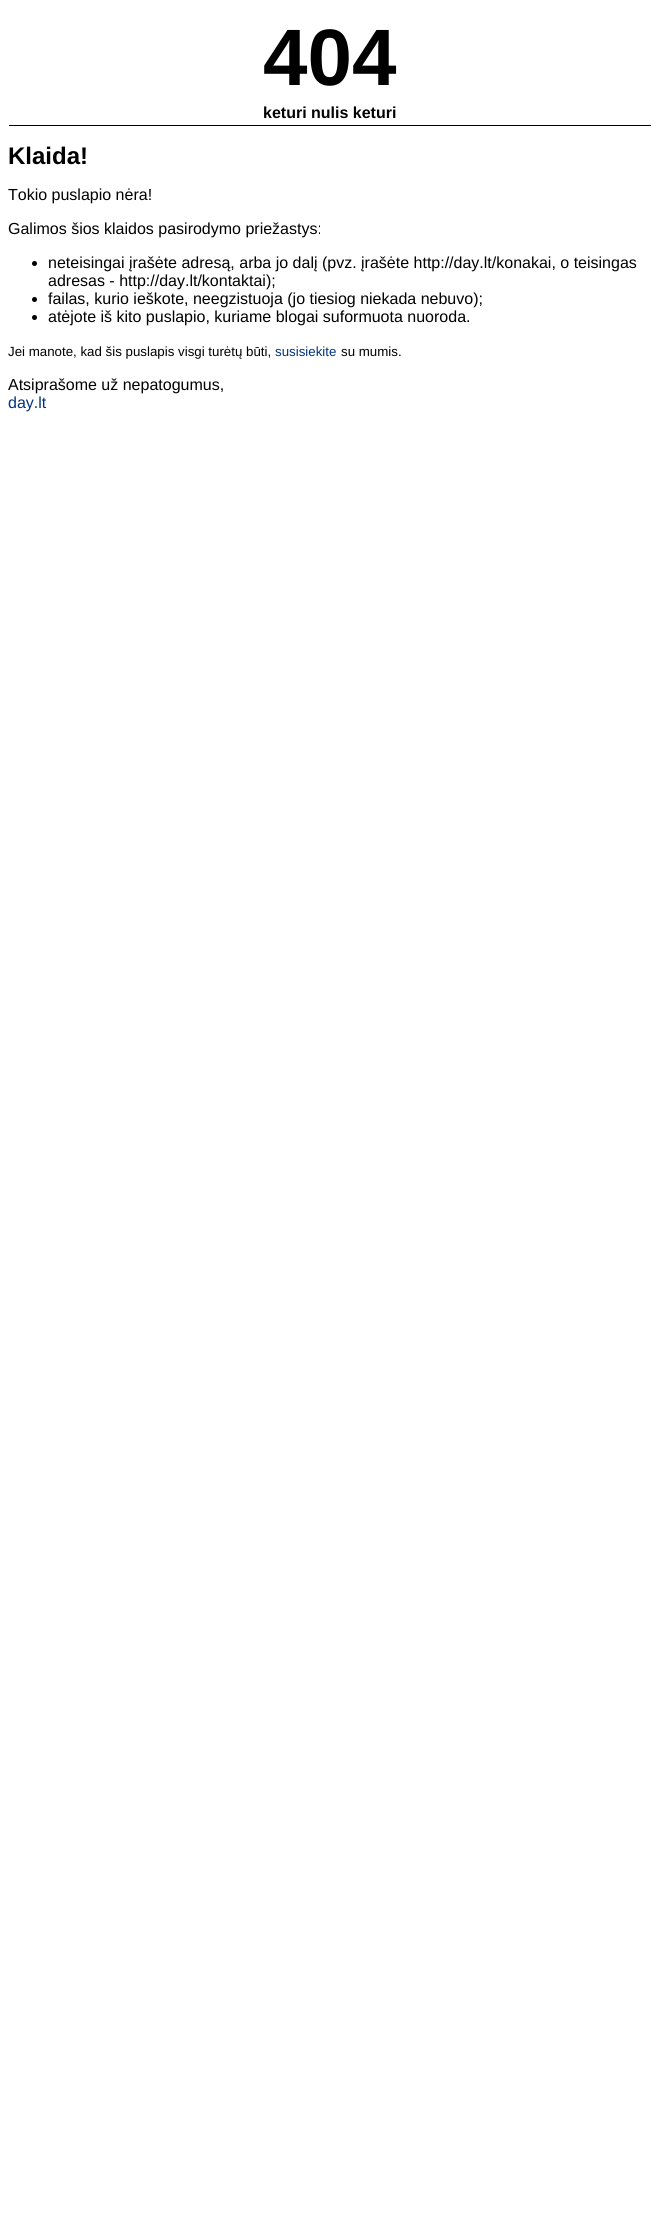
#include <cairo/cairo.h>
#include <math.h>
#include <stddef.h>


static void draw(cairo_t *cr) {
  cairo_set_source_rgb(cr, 1, 1, 1);
  cairo_paint(cr);
  cairo_set_source_rgb(cr, 0, 0, 0);
  cairo_rectangle(cr, 8, 125, 643, 1);
  cairo_fill(cr);
  cairo_set_source_rgb(cr, 1, 1, 1);
  cairo_rectangle(cr, 8, 125, 1, 1);
  cairo_fill(cr);
  cairo_set_source_rgb(cr, 0, 0, 0);
  cairo_arc(cr, 34.5, 263.5, 2.5, 0, 2 * M_PI);
  cairo_fill(cr);
  cairo_arc(cr, 34.5, 299.5, 2.5, 0, 2 * M_PI);
  cairo_fill(cr);
  cairo_arc(cr, 34.5, 317.5, 2.5, 0, 2 * M_PI);
  cairo_fill(cr);
  cairo_select_font_face(cr, "Liberation Sans", CAIRO_FONT_SLANT_NORMAL, CAIRO_FONT_WEIGHT_BOLD);
  cairo_set_font_size(cr, 80);
  cairo_move_to(cr, 263, 85);
  cairo_show_text(cr, "404");
  cairo_set_font_size(cr, 16);
  cairo_move_to(cr, 263, 118);
  cairo_show_text(cr, "keturi nulis keturi");
  cairo_set_font_size(cr, 24);
  cairo_move_to(cr, 8, 164);
  cairo_show_text(cr, "Klaida!");
  cairo_select_font_face(cr, "Liberation Sans", CAIRO_FONT_SLANT_NORMAL, CAIRO_FONT_WEIGHT_NORMAL);
  cairo_set_font_size(cr, 16);
  cairo_move_to(cr, 8, 200);
  cairo_show_text(cr, "Tokio puslapio nėra!");
  cairo_move_to(cr, 8, 234);
  cairo_show_text(cr, "Galimos šios klaidos pasirodymo priežastys:");
  cairo_move_to(cr, 48, 268);
  cairo_show_text(cr, "neteisingai įrašėte adresą, arba jo dalį (pvz. įrašėte http://day.lt/konakai, o teisingas");
  cairo_move_to(cr, 48, 286);
  cairo_show_text(cr, "adresas - http://day.lt/kontaktai);");
  cairo_move_to(cr, 48, 304);
  cairo_show_text(cr, "failas, kurio ieškote, neegzistuoja (jo tiesiog niekada nebuvo);");
  cairo_move_to(cr, 48, 322);
  cairo_show_text(cr, "atėjote iš kito puslapio, kuriame blogai suformuota nuoroda.");
  cairo_set_font_size(cr, 13.3);
  cairo_move_to(cr, 8, 356);
  cairo_show_text(cr, "Jei manote, kad šis puslapis visgi turėtų būti,");
  cairo_set_source_rgb(cr, 0, 51 / 255.0, 127 / 255.0);
  cairo_move_to(cr, 275, 356);
  cairo_show_text(cr, "susisiekite");
  cairo_set_source_rgb(cr, 0, 0, 0);
  cairo_move_to(cr, 341, 356);
  cairo_show_text(cr, "su mumis.");
  cairo_set_font_size(cr, 16);
  cairo_move_to(cr, 8, 390);
  cairo_show_text(cr, "Atsiprašome už nepatogumus,");
  cairo_set_source_rgb(cr, 0, 51 / 255.0, 127 / 255.0);
  cairo_move_to(cr, 8, 408);
  cairo_show_text(cr, "day.lt");
}

int main(void) {
  cairo_surface_t *surface = cairo_image_surface_create(CAIRO_FORMAT_RGB24, 659, 2229);
  cairo_t *cr = cairo_create(surface);
  cairo_font_options_t *options = cairo_font_options_create();
  cairo_font_options_set_hint_metrics(options, CAIRO_HINT_METRICS_OFF);
  cairo_font_options_set_hint_style(options, CAIRO_HINT_STYLE_NONE);
  cairo_set_font_options(cr, options);
  cairo_set_miter_limit(cr, 4);
  draw(cr);
  cairo_surface_write_to_png(surface, "out.png");
  cairo_font_options_destroy(options);
  cairo_destroy(cr);
  cairo_surface_destroy(surface);
  return 0;
}
